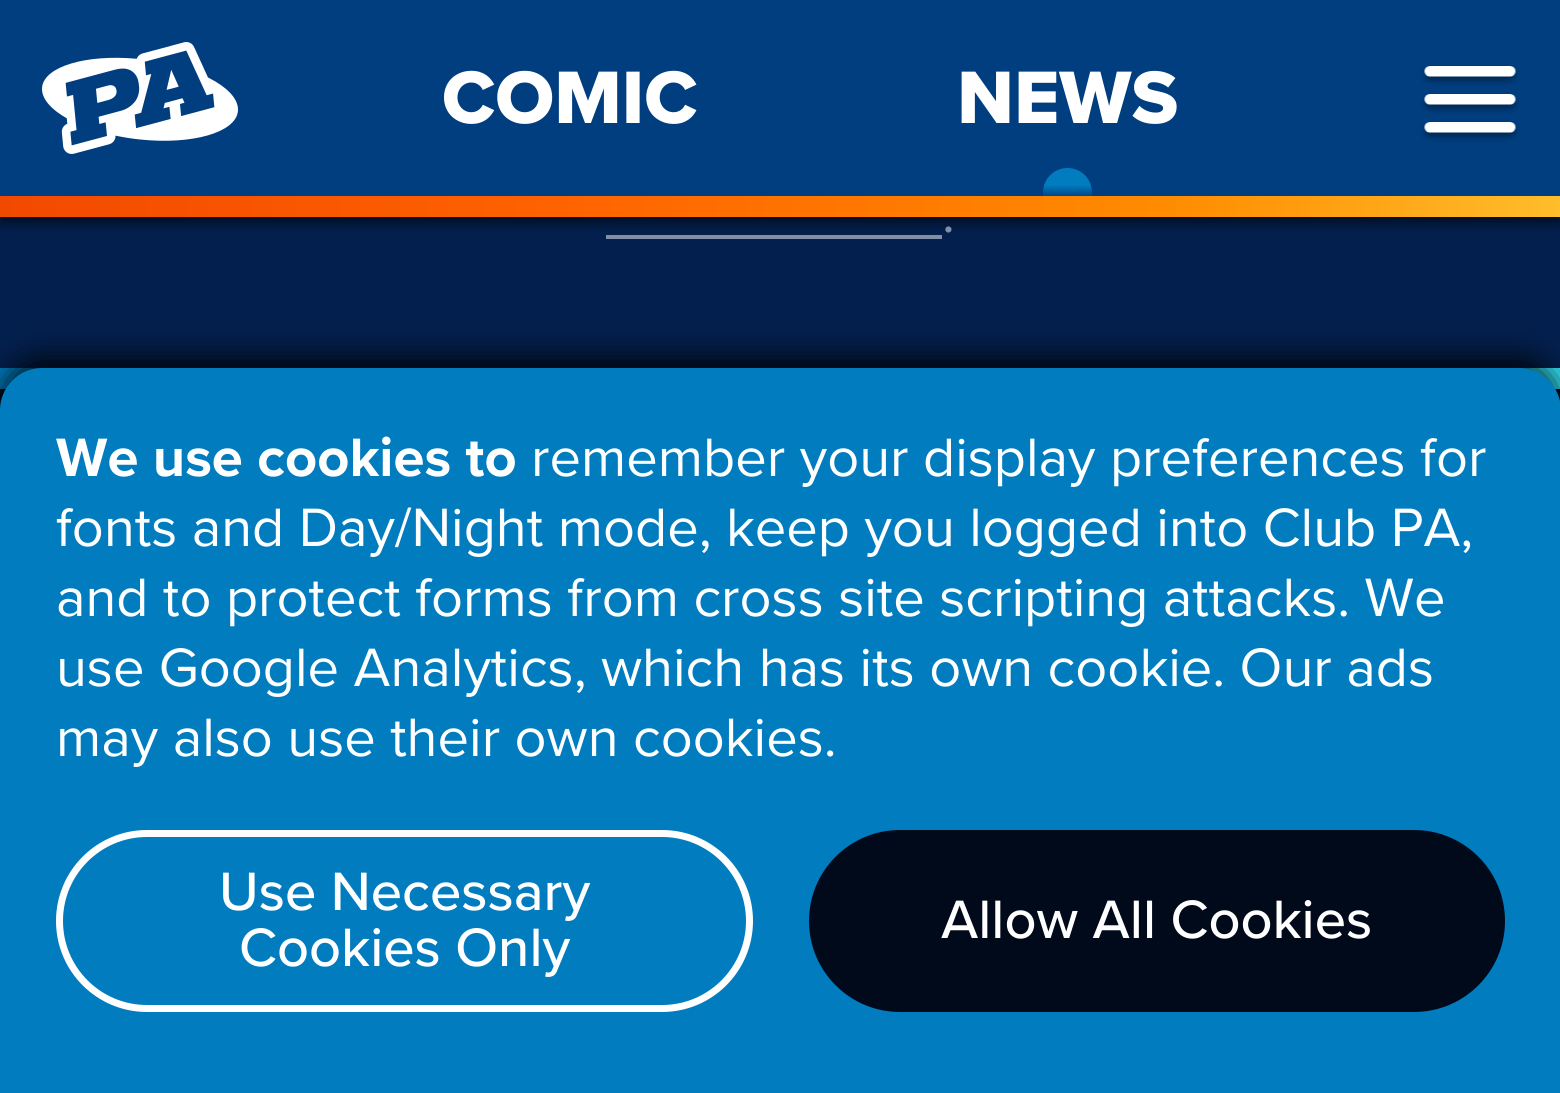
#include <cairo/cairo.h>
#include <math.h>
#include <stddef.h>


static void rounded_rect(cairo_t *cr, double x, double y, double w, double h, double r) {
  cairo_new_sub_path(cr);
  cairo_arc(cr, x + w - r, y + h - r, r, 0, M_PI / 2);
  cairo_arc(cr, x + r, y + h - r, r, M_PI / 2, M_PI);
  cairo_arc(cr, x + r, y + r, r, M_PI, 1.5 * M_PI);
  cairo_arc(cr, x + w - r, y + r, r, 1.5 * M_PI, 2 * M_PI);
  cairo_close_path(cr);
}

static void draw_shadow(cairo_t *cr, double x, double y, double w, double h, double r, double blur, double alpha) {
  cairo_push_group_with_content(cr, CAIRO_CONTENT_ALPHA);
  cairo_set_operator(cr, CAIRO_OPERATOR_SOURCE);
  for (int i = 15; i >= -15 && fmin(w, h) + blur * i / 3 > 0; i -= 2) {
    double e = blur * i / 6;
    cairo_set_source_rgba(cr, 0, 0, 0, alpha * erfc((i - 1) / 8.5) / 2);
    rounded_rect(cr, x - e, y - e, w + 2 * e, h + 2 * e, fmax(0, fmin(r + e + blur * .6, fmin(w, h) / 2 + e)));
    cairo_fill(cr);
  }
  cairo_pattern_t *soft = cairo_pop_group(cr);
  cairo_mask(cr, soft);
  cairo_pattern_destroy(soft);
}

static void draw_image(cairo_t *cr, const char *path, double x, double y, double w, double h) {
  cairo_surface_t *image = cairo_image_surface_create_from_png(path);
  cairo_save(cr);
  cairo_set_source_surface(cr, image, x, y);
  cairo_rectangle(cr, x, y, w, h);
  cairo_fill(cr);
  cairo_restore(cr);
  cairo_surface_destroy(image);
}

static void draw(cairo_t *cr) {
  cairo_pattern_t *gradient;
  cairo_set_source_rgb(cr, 1 / 255.0, 10 / 255.0, 26 / 255.0);
  cairo_paint(cr);
  cairo_set_source_rgb(cr, 3 / 255.0, 31 / 255.0, 77 / 255.0);
  cairo_rectangle(cr, 0, 217, 1560, 151);
  cairo_fill(cr);
  cairo_set_source_rgb(cr, 129 / 255.0, 143 / 255.0, 166 / 255.0);
  cairo_rectangle(cr, 606, 235, 336, 4);
  cairo_fill(cr);
  cairo_set_source_rgb(cr, 0, 0, 0);
  draw_shadow(cr, 0, 7, 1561, 217, 0, 5, 0.5);
  cairo_set_source_rgb(cr, 0, 62 / 255.0, 128 / 255.0);
  cairo_rectangle(cr, 0, 0, 1560, 196);
  cairo_fill(cr);
  draw_image(cr, "images/1.png", 42, 42, 196, 112);
  gradient = cairo_pattern_create_linear(1068, 217, 1068, 168);
  cairo_pattern_add_color_stop_rgba(gradient, 0.4, 0, 62 / 255.0, 128 / 255.0, 1);
  cairo_pattern_add_color_stop_rgba(gradient, 0.65, 0, 124 / 255.0, 191 / 255.0, 1);
  cairo_set_source(cr, gradient);
  cairo_pattern_destroy(gradient);
  cairo_arc(cr, 1067.5, 192.5, 24.5, 0, 2 * M_PI);
  cairo_fill(cr);
  draw_image(cr, "images/2.png", 1420, 65, 100, 77);
  gradient = cairo_pattern_create_linear(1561, 207, 0, 206);
  cairo_pattern_add_color_stop_rgba(gradient, 0, 1, 189 / 255.0, 43 / 255.0, 1);
  cairo_pattern_add_color_stop_rgba(gradient, 0.25, 1, 140 / 255.0, 0, 1);
  cairo_pattern_add_color_stop_rgba(gradient, 0.65, 1, 98 / 255.0, 0, 1);
  cairo_pattern_add_color_stop_rgba(gradient, 1, 242 / 255.0, 73 / 255.0, 0, 1);
  cairo_set_source(cr, gradient);
  cairo_pattern_destroy(gradient);
  cairo_rectangle(cr, 0, 196, 1560, 21);
  cairo_fill(cr);
  cairo_set_source_rgb(cr, 0, 124 / 255.0, 191 / 255.0);
  cairo_rectangle(cr, 0, 368, 42, 21);
  cairo_fill(cr);
  cairo_set_source_rgb(cr, 51 / 255.0, 235 / 255.0, 1);
  cairo_rectangle(cr, 1519, 368, 41, 21);
  cairo_fill(cr);
  cairo_set_source_rgb(cr, 0, 0, 0);
  draw_shadow(cr, 0, 357, 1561, 728, 42, 14, 0.8);
  cairo_set_source_rgb(cr, 0, 124 / 255.0, 191 / 255.0);
  cairo_new_path(cr);
  cairo_move_to(cr, 42, 368);
  cairo_line_to(cr, 1519, 368);
  cairo_curve_to(cr, 1542, 368, 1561, 387, 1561, 410);
  cairo_line_to(cr, 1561, 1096);
  cairo_line_to(cr, 0, 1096);
  cairo_line_to(cr, 0, 410);
  cairo_curve_to(cr, 0, 387, 19, 368, 42, 368);
  cairo_close_path(cr);
  cairo_fill(cr);
  rounded_rect(cr, 59.5, 833.5, 690, 175, 87.5);
  cairo_set_source_rgb(cr, 1, 1, 1);
  cairo_set_line_width(cr, 7);
  cairo_stroke(cr);
  cairo_set_source_rgb(cr, 1 / 255.0, 10 / 255.0, 26 / 255.0);
  rounded_rect(cr, 812.5, 833.5, 689, 175, 87.5);
  cairo_fill_preserve(cr);
  cairo_stroke(cr);
  cairo_select_font_face(cr, "Proxima Nova ExtraBold", CAIRO_FONT_SLANT_NORMAL, CAIRO_FONT_WEIGHT_NORMAL);
  cairo_set_font_size(cr, 77);
  cairo_set_source_rgb(cr, 1, 1, 1);
  cairo_move_to(cr, 442, 123);
  cairo_show_text(cr, "COMIC");
  cairo_move_to(cr, 957, 123);
  cairo_show_text(cr, "NEWS");
  cairo_select_font_face(cr, "Proxima Nova", CAIRO_FONT_SLANT_NORMAL, CAIRO_FONT_WEIGHT_NORMAL);
  cairo_set_font_size(cr, 56);
  cairo_set_source_rgb(cr, 129 / 255.0, 143 / 255.0, 166 / 255.0);
  cairo_move_to(cr, 942, 232);
  cairo_show_text(cr, ".");
  cairo_select_font_face(cr, "Proxima Nova", CAIRO_FONT_SLANT_NORMAL, CAIRO_FONT_WEIGHT_BOLD);
  cairo_set_source_rgb(cr, 1, 1, 1);
  cairo_move_to(cr, 56, 476);
  cairo_show_text(cr, "We use cookies to");
  cairo_select_font_face(cr, "Proxima Nova", CAIRO_FONT_SLANT_NORMAL, CAIRO_FONT_WEIGHT_NORMAL);
  cairo_move_to(cr, 531, 476);
  cairo_show_text(cr, "remember your display preferences for");
  cairo_move_to(cr, 56, 546);
  cairo_show_text(cr, "fonts and Day/Night mode, keep you logged into Club PA,");
  cairo_move_to(cr, 56, 616);
  cairo_show_text(cr, "and to protect forms from cross site scripting attacks. We");
  cairo_move_to(cr, 56, 686);
  cairo_show_text(cr, "use Google Analytics, which has its own cookie. Our ads");
  cairo_move_to(cr, 56, 756);
  cairo_show_text(cr, "may also use their own cookies.");
  cairo_select_font_face(cr, "Proxima Nova Medium", CAIRO_FONT_SLANT_NORMAL, CAIRO_FONT_WEIGHT_NORMAL);
  cairo_move_to(cr, 219, 910);
  cairo_show_text(cr, "Use Necessary");
  cairo_move_to(cr, 239, 966);
  cairo_show_text(cr, "Cookies Only");
  cairo_move_to(cr, 941, 938);
  cairo_show_text(cr, "Allow All Cookies");
}

int main(void) {
  cairo_surface_t *surface = cairo_image_surface_create(CAIRO_FORMAT_RGB24, 1560, 1093);
  cairo_t *cr = cairo_create(surface);
  cairo_font_options_t *options = cairo_font_options_create();
  cairo_font_options_set_hint_metrics(options, CAIRO_HINT_METRICS_OFF);
  cairo_font_options_set_hint_style(options, CAIRO_HINT_STYLE_NONE);
  cairo_set_font_options(cr, options);
  cairo_set_miter_limit(cr, 4);
  draw(cr);
  cairo_surface_write_to_png(surface, "out.png");
  cairo_font_options_destroy(options);
  cairo_destroy(cr);
  cairo_surface_destroy(surface);
  return 0;
}
